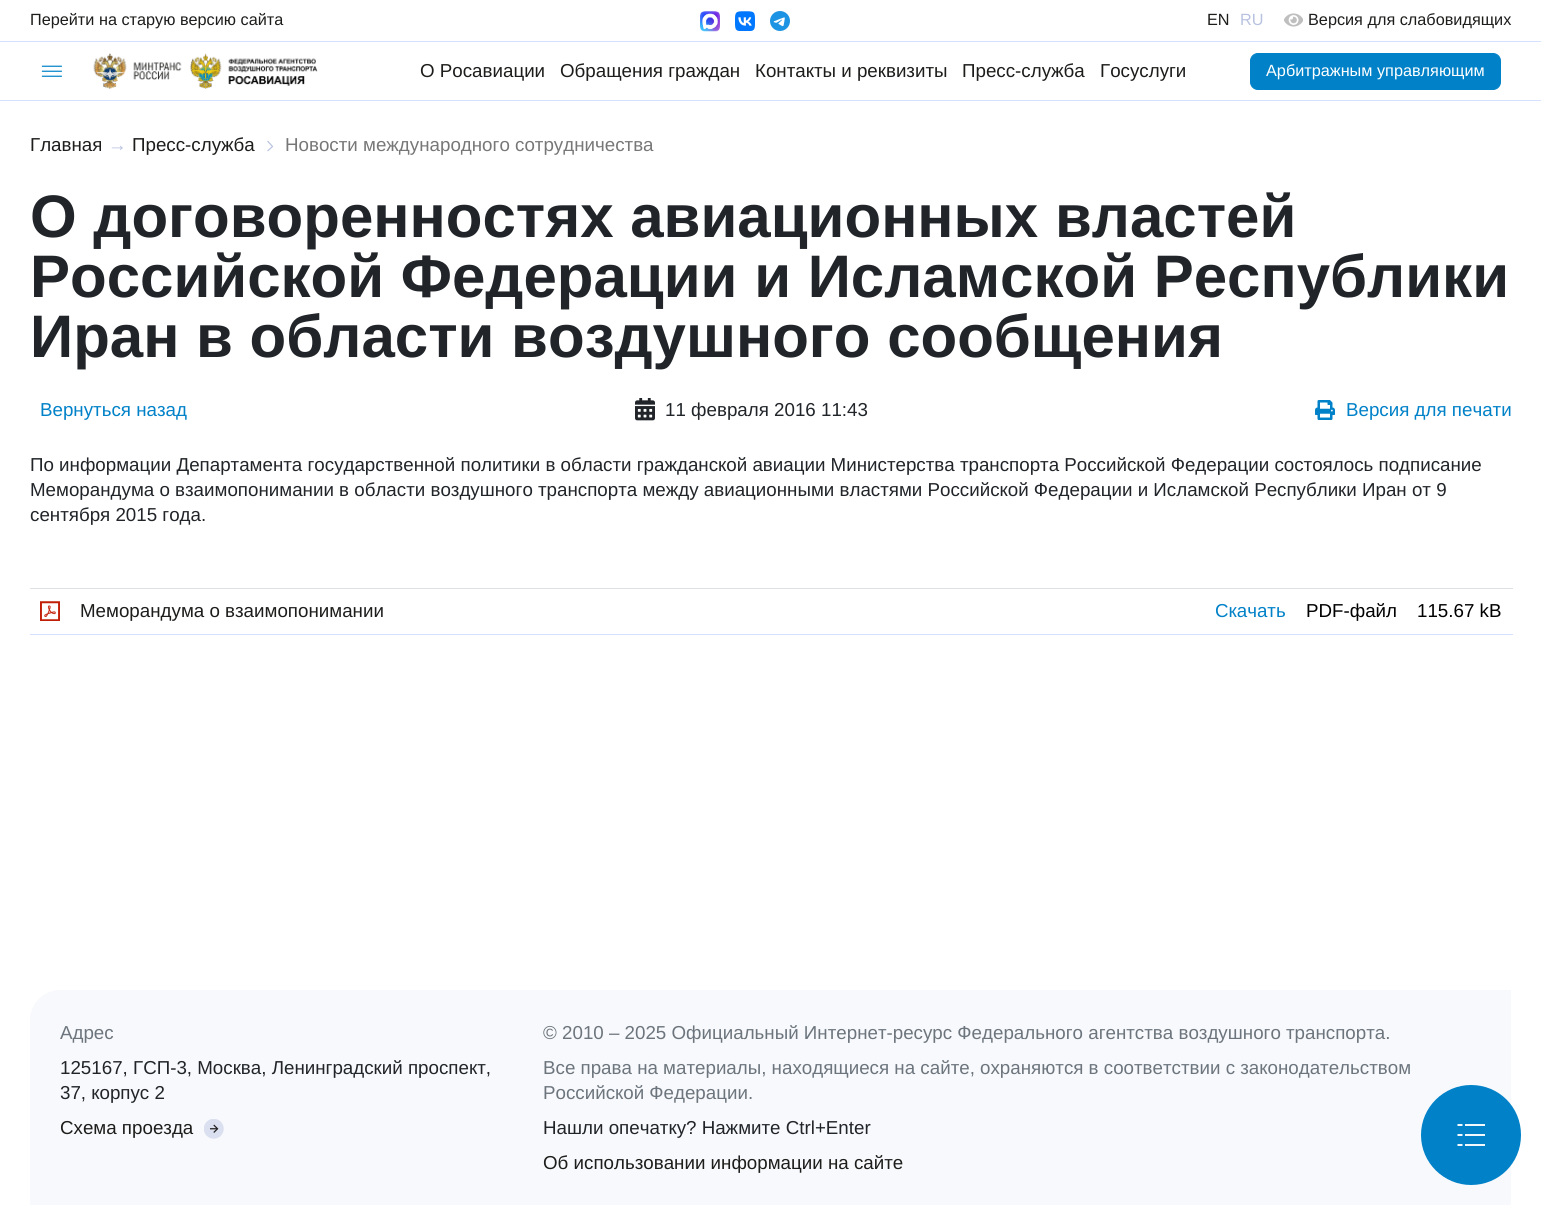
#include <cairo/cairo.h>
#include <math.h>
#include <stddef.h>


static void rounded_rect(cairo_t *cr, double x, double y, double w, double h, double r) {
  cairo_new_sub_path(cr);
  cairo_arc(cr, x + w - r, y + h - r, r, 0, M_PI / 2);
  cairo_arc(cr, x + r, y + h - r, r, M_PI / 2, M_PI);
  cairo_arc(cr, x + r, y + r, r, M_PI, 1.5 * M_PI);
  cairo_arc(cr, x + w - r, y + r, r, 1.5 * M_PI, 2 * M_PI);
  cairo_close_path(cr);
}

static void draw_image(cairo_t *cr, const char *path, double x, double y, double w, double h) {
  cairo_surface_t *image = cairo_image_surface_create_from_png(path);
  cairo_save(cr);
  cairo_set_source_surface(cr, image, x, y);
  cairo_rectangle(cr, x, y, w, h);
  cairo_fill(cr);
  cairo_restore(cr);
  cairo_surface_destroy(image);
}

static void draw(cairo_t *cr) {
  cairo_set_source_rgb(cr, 1, 1, 1);
  cairo_paint(cr);
  draw_image(cr, "images/1.png", 700, 11, 20, 21);
  draw_image(cr, "images/2.png", 735, 11, 20, 20);
  draw_image(cr, "images/3.png", 770, 11, 20, 20);
  draw_image(cr, "images/4.png", 1284, 13, 19, 14);
  cairo_set_source_rgb(cr, 214 / 255.0, 224 / 255.0, 1);
  cairo_rectangle(cr, 0, 41, 1541, 1);
  cairo_fill(cr);
  cairo_rectangle(cr, 0, 100, 1541, 1);
  cairo_fill(cr);
  draw_image(cr, "images/5.png", 41, 65, 21, 12);
  draw_image(cr, "images/6.png", 93, 53, 34, 36);
  draw_image(cr, "images/7.png", 133, 62, 49, 18);
  draw_image(cr, "images/8.png", 190, 53, 32, 36);
  draw_image(cr, "images/9.png", 228, 58, 90, 28);
  cairo_set_source_rgb(cr, 0, 129 / 255.0, 200 / 255.0);
  rounded_rect(cr, 1250.5, 53.5, 250, 36, 7.5);
  cairo_fill_preserve(cr);
  cairo_set_line_width(cr, 1);
  cairo_stroke(cr);
  cairo_new_path(cr);
  cairo_move_to(cr, 267.5, 151);
  cairo_line_to(cr, 272.5, 146.5);
  cairo_line_to(cr, 267.5, 141);
  cairo_set_source_rgb(cr, 184 / 255.0, 194 / 255.0, 224 / 255.0);
  cairo_set_line_width(cr, 1.2);
  cairo_stroke(cr);
  draw_image(cr, "images/10.png", 635, 398, 20, 23);
  draw_image(cr, "images/11.png", 1315, 400, 20, 20);
  cairo_set_source_rgb(cr, 222 / 255.0, 226 / 255.0, 230 / 255.0);
  cairo_rectangle(cr, 30, 588, 1483, 1);
  cairo_fill(cr);
  draw_image(cr, "images/12.png", 40, 601, 20, 20);
  cairo_set_source_rgb(cr, 214 / 255.0, 224 / 255.0, 1);
  cairo_rectangle(cr, 30, 634, 1483, 1);
  cairo_fill(cr);
  cairo_set_source_rgb(cr, 248 / 255.0, 249 / 255.0, 252 / 255.0);
  cairo_new_path(cr);
  cairo_move_to(cr, 60, 990);
  cairo_line_to(cr, 1511, 990);
  cairo_line_to(cr, 1511, 1205);
  cairo_line_to(cr, 30, 1205);
  cairo_line_to(cr, 30, 1020);
  cairo_curve_to(cr, 30, 1003.5, 43.5, 990, 60, 990);
  cairo_close_path(cr);
  cairo_fill(cr);
  draw_image(cr, "images/13.png", 204, 1119, 20, 20);
  cairo_set_source_rgb(cr, 0, 129 / 255.0, 200 / 255.0);
  cairo_new_path(cr);
  cairo_move_to(cr, 1471, 1185);
  cairo_curve_to(cr, 1499, 1185, 1521, 1163, 1521, 1135);
  cairo_curve_to(cr, 1521, 1107, 1499, 1085, 1471, 1085);
  cairo_curve_to(cr, 1444, 1085, 1421, 1107, 1421, 1135);
  cairo_curve_to(cr, 1421, 1163, 1444, 1185, 1471, 1185);
  cairo_close_path(cr);
  cairo_fill(cr);
  cairo_new_path(cr);
  cairo_move_to(cr, 1457.5, 1125);
  cairo_line_to(cr, 1462.5, 1125);
  cairo_set_source_rgb(cr, 1, 1, 1);
  cairo_set_line_width(cr, 1.9);
  cairo_stroke(cr);
  cairo_set_source_rgb(cr, 242 / 255.0, 249 / 255.0, 252 / 255.0);
  cairo_rectangle(cr, 1465, 1124, 20, 2);
  cairo_fill(cr);
  cairo_new_path(cr);
  cairo_move_to(cr, 1457.5, 1135);
  cairo_line_to(cr, 1462.5, 1135);
  cairo_set_source_rgb(cr, 1, 1, 1);
  cairo_stroke(cr);
  cairo_set_source_rgb(cr, 242 / 255.0, 249 / 255.0, 252 / 255.0);
  cairo_rectangle(cr, 1465, 1134, 20, 2);
  cairo_fill(cr);
  cairo_new_path(cr);
  cairo_move_to(cr, 1457.5, 1145);
  cairo_line_to(cr, 1462.5, 1145);
  cairo_set_source_rgb(cr, 1, 1, 1);
  cairo_stroke(cr);
  cairo_set_source_rgb(cr, 242 / 255.0, 249 / 255.0, 252 / 255.0);
  cairo_rectangle(cr, 1465, 1144, 20, 2);
  cairo_fill(cr);
  cairo_select_font_face(cr, "Liberation Sans", CAIRO_FONT_SLANT_NORMAL, CAIRO_FONT_WEIGHT_NORMAL);
  cairo_set_font_size(cr, 16.25);
  cairo_set_source_rgb(cr, 29 / 255.0, 29 / 255.0, 27 / 255.0);
  cairo_move_to(cr, 30, 25);
  cairo_show_text(cr, "Перейти на старую версию сайта");
  cairo_move_to(cr, 1207, 25);
  cairo_show_text(cr, "EN");
  cairo_set_source_rgb(cr, 184 / 255.0, 194 / 255.0, 224 / 255.0);
  cairo_move_to(cr, 1240, 25);
  cairo_show_text(cr, "RU");
  cairo_set_source_rgb(cr, 29 / 255.0, 29 / 255.0, 27 / 255.0);
  cairo_move_to(cr, 1308, 25);
  cairo_show_text(cr, "Версия для слабовидящих");
  cairo_set_font_size(cr, 18.75);
  cairo_move_to(cr, 420, 77);
  cairo_show_text(cr, "О Росавиации");
  cairo_move_to(cr, 560, 77);
  cairo_show_text(cr, "Обращения граждан");
  cairo_move_to(cr, 755, 77);
  cairo_show_text(cr, "Контакты и реквизиты");
  cairo_move_to(cr, 962, 77);
  cairo_show_text(cr, "Пресс-служба");
  cairo_move_to(cr, 1100, 77);
  cairo_show_text(cr, "Госуслуги");
  cairo_set_font_size(cr, 16.25);
  cairo_set_source_rgb(cr, 1, 1, 1);
  cairo_move_to(cr, 1266, 76);
  cairo_show_text(cr, "Арбитражным управляющим");
  cairo_set_font_size(cr, 18.75);
  cairo_set_source_rgb(cr, 29 / 255.0, 29 / 255.0, 27 / 255.0);
  cairo_move_to(cr, 30, 151);
  cairo_show_text(cr, "Главная");
  cairo_set_source_rgb(cr, 184 / 255.0, 194 / 255.0, 224 / 255.0);
  cairo_move_to(cr, 108, 151);
  cairo_show_text(cr, "→");
  cairo_set_source_rgb(cr, 29 / 255.0, 29 / 255.0, 27 / 255.0);
  cairo_move_to(cr, 132, 151);
  cairo_show_text(cr, "Пресс-служба");
  cairo_set_source_rgb(cr, 119 / 255.0, 119 / 255.0, 119 / 255.0);
  cairo_move_to(cr, 285, 151);
  cairo_show_text(cr, "Новости международного сотрудничества");
  cairo_select_font_face(cr, "Liberation Sans", CAIRO_FONT_SLANT_NORMAL, CAIRO_FONT_WEIGHT_BOLD);
  cairo_set_font_size(cr, 60);
  cairo_set_source_rgb(cr, 33 / 255.0, 37 / 255.0, 41 / 255.0);
  cairo_move_to(cr, 30, 237);
  cairo_show_text(cr, "О договоренностях авиационных властей");
  cairo_move_to(cr, 30, 297);
  cairo_show_text(cr, "Российской Федерации и Исламской Республики");
  cairo_move_to(cr, 30, 357);
  cairo_show_text(cr, "Иран в области воздушного сообщения");
  cairo_select_font_face(cr, "Liberation Sans", CAIRO_FONT_SLANT_NORMAL, CAIRO_FONT_WEIGHT_NORMAL);
  cairo_set_font_size(cr, 18.75);
  cairo_set_source_rgb(cr, 0, 129 / 255.0, 200 / 255.0);
  cairo_move_to(cr, 40, 416);
  cairo_show_text(cr, "Вернуться назад");
  cairo_set_source_rgb(cr, 33 / 255.0, 37 / 255.0, 41 / 255.0);
  cairo_move_to(cr, 665, 416);
  cairo_show_text(cr, "11 февраля 2016 11:43");
  cairo_set_source_rgb(cr, 0, 129 / 255.0, 200 / 255.0);
  cairo_move_to(cr, 1346, 416);
  cairo_show_text(cr, "Версия для печати");
  cairo_set_source_rgb(cr, 33 / 255.0, 37 / 255.0, 41 / 255.0);
  cairo_move_to(cr, 30, 471);
  cairo_show_text(cr, "По информации Департамента государственной политики в области гражданской авиации Министерства транспорта Российской Федерации состоялось подписание");
  cairo_move_to(cr, 30, 496);
  cairo_show_text(cr, "Меморандума о взаимопонимании в области воздушного транспорта между авиационными властями Российской Федерации и Исламской Республики Иран от 9");
  cairo_move_to(cr, 30, 521);
  cairo_show_text(cr, "сентября 2015 года.");
  cairo_set_source_rgb(cr, 29 / 255.0, 29 / 255.0, 27 / 255.0);
  cairo_move_to(cr, 80, 617);
  cairo_show_text(cr, "Меморандума о взаимопонимании");
  cairo_set_source_rgb(cr, 0, 129 / 255.0, 200 / 255.0);
  cairo_move_to(cr, 1215, 617);
  cairo_show_text(cr, "Скачать");
  cairo_set_source_rgb(cr, 0, 0, 0);
  cairo_move_to(cr, 1306, 617);
  cairo_show_text(cr, "PDF-файл");
  cairo_move_to(cr, 1417, 617);
  cairo_show_text(cr, "115.67 kB");
  cairo_set_source_rgb(cr, 108 / 255.0, 117 / 255.0, 125 / 255.0);
  cairo_move_to(cr, 60, 1039);
  cairo_show_text(cr, "Адрес");
  cairo_set_source_rgb(cr, 33 / 255.0, 37 / 255.0, 41 / 255.0);
  cairo_move_to(cr, 60, 1074);
  cairo_show_text(cr, "125167, ГСП-3, Москва, Ленинградский проспект,");
  cairo_move_to(cr, 60, 1099);
  cairo_show_text(cr, "37, корпус 2");
  cairo_set_source_rgb(cr, 29 / 255.0, 29 / 255.0, 27 / 255.0);
  cairo_move_to(cr, 60, 1134);
  cairo_show_text(cr, "Схема проезда");
  cairo_set_source_rgb(cr, 108 / 255.0, 117 / 255.0, 125 / 255.0);
  cairo_move_to(cr, 543, 1039);
  cairo_show_text(cr, "© 2010 – 2025 Официальный Интернет-ресурс Федерального агентства воздушного транспорта.");
  cairo_move_to(cr, 543, 1074);
  cairo_show_text(cr, "Все права на материалы, находящиеся на сайте, охраняются в соответствии с законодательством");
  cairo_move_to(cr, 543, 1099);
  cairo_show_text(cr, "Российской Федерации.");
  cairo_set_source_rgb(cr, 33 / 255.0, 37 / 255.0, 41 / 255.0);
  cairo_move_to(cr, 543, 1134);
  cairo_show_text(cr, "Нашли опечатку? Нажмите Ctrl+Enter");
  cairo_set_source_rgb(cr, 29 / 255.0, 29 / 255.0, 27 / 255.0);
  cairo_move_to(cr, 543, 1169);
  cairo_show_text(cr, "Об использовании информации на сайте");
}

int main(void) {
  cairo_surface_t *surface = cairo_image_surface_create(CAIRO_FORMAT_RGB24, 1541, 1205);
  cairo_t *cr = cairo_create(surface);
  cairo_font_options_t *options = cairo_font_options_create();
  cairo_font_options_set_hint_metrics(options, CAIRO_HINT_METRICS_OFF);
  cairo_font_options_set_hint_style(options, CAIRO_HINT_STYLE_NONE);
  cairo_set_font_options(cr, options);
  cairo_set_miter_limit(cr, 4);
  draw(cr);
  cairo_surface_write_to_png(surface, "out.png");
  cairo_font_options_destroy(options);
  cairo_destroy(cr);
  cairo_surface_destroy(surface);
  return 0;
}
